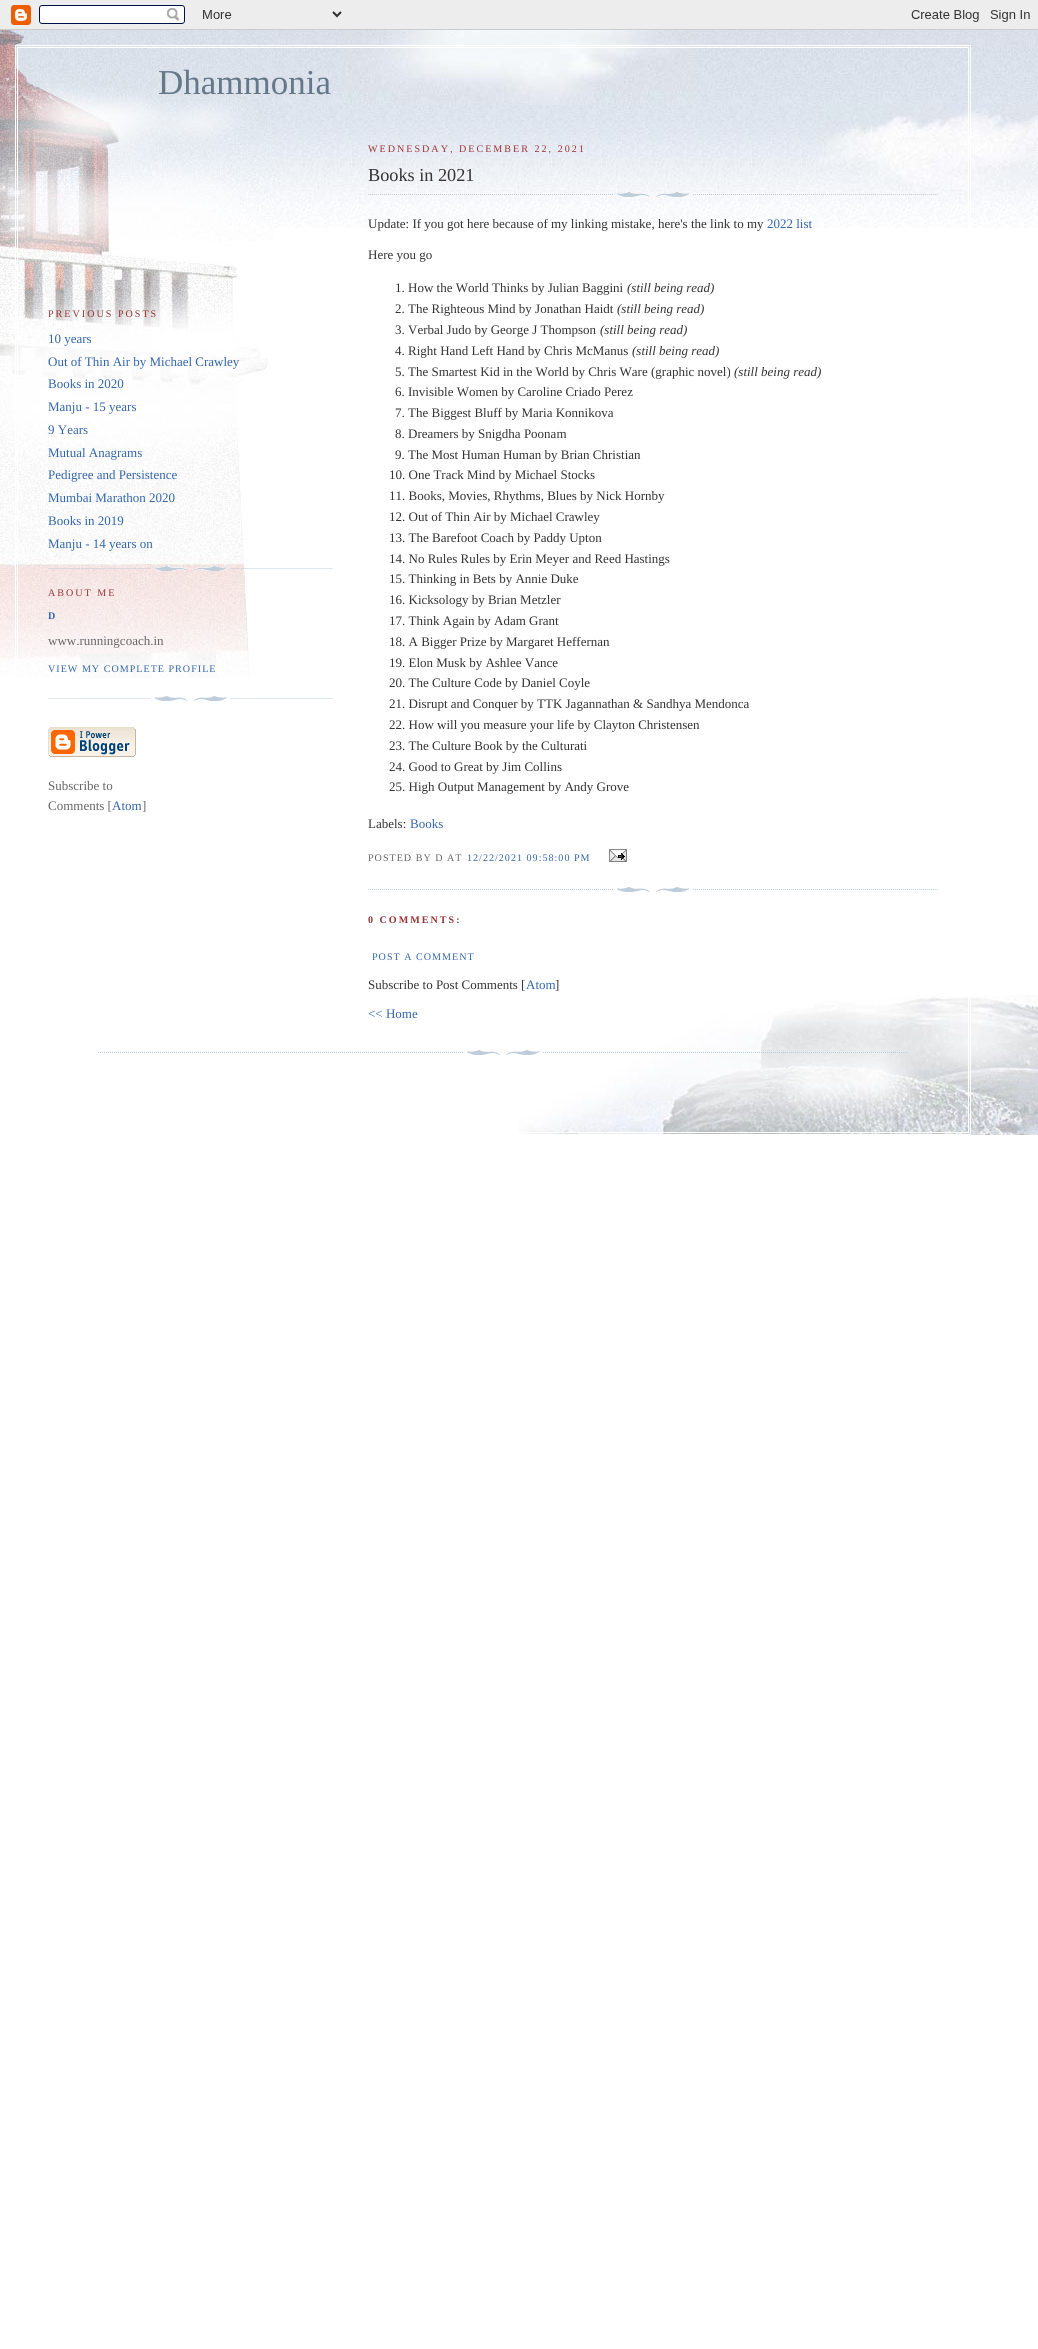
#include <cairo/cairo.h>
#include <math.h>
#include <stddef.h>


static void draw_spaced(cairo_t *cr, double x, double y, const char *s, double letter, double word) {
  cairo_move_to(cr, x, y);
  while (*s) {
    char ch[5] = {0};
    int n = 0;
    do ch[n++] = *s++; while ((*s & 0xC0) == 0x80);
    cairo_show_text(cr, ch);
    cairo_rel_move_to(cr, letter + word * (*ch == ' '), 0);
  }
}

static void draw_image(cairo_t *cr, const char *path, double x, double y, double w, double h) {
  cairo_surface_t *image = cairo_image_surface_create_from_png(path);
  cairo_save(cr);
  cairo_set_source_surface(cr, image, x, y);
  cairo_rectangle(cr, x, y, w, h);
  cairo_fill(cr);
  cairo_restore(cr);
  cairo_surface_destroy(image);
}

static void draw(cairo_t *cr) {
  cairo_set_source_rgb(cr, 1, 1, 1);
  cairo_paint(cr);
  draw_image(cr, "images/1.png", 518, 995, 520, 140);
  draw_image(cr, "images/2.png", 0, 0, 1038, 30);
  draw_image(cr, "images/3.png", 274, 30, 764, 198);
  draw_image(cr, "images/4.png", 0, 30, 274, 648);
  draw_image(cr, "images/5.png", 818, 105, 220, 85);
  draw_image(cr, "images/6.png", 344, 30, 350, 75);
  cairo_rectangle(cr, 15.5, 45.5, 955, 1089);
  cairo_set_source_rgb(cr, 1, 1, 1);
  cairo_set_line_width(cr, 1);
  cairo_stroke(cr);
  cairo_rectangle(cr, 17.5, 47.5, 951, 1085);
  cairo_stroke(cr);
  draw_image(cr, "images/7.png", 48, 566, 285, 5);
  draw_image(cr, "images/8.png", 48, 696, 285, 5);
  draw_image(cr, "images/9.png", 48, 727, 88, 30);
  draw_image(cr, "images/10.png", 368, 192, 570, 5);
  draw_image(cr, "images/11.png", 609, 849, 18, 13);
  draw_image(cr, "images/12.png", 368, 887, 570, 5);
  draw_image(cr, "images/13.png", 98, 1050, 810, 5);
  cairo_select_font_face(cr, "Liberation Serif", CAIRO_FONT_SLANT_NORMAL, CAIRO_FONT_WEIGHT_NORMAL);
  cairo_set_font_size(cr, 35);
  cairo_set_source_rgb(cr, 102 / 255.0, 119 / 255.0, 136 / 255.0);
  cairo_move_to(cr, 158, 94);
  cairo_show_text(cr, "Dhammonia");
  cairo_set_font_size(cr, 10.1);
  cairo_set_source_rgb(cr, 153 / 255.0, 51 / 255.0, 51 / 255.0);
  draw_spaced(cr, 48, 317, "PREVIOUS POSTS", 2, 0);
  cairo_set_font_size(cr, 13);
  cairo_set_source_rgb(cr, 51 / 255.0, 102 / 255.0, 170 / 255.0);
  cairo_move_to(cr, 48, 343);
  cairo_show_text(cr, "10 years");
  cairo_move_to(cr, 48, 366);
  cairo_show_text(cr, "Out of Thin Air by Michael Crawley");
  cairo_move_to(cr, 48, 388);
  cairo_show_text(cr, "Books in 2020");
  cairo_move_to(cr, 48, 411);
  cairo_show_text(cr, "Manju - 15 years");
  cairo_move_to(cr, 48, 434);
  cairo_show_text(cr, "9 Years");
  cairo_move_to(cr, 48, 457);
  cairo_show_text(cr, "Mutual Anagrams");
  cairo_move_to(cr, 48, 479);
  cairo_show_text(cr, "Pedigree and Persistence");
  cairo_move_to(cr, 48, 502);
  cairo_show_text(cr, "Mumbai Marathon 2020");
  cairo_move_to(cr, 48, 525);
  cairo_show_text(cr, "Books in 2019");
  cairo_move_to(cr, 48, 548);
  cairo_show_text(cr, "Manju - 14 years on");
  cairo_set_font_size(cr, 10.1);
  cairo_set_source_rgb(cr, 153 / 255.0, 51 / 255.0, 51 / 255.0);
  draw_spaced(cr, 48, 596, "ABOUT ME", 2, 0);
  cairo_select_font_face(cr, "Liberation Serif", CAIRO_FONT_SLANT_NORMAL, CAIRO_FONT_WEIGHT_BOLD);
  cairo_set_source_rgb(cr, 51 / 255.0, 102 / 255.0, 170 / 255.0);
  draw_spaced(cr, 48, 619, "D", 1, 0);
  cairo_select_font_face(cr, "Liberation Serif", CAIRO_FONT_SLANT_NORMAL, CAIRO_FONT_WEIGHT_NORMAL);
  cairo_set_font_size(cr, 13);
  cairo_set_source_rgb(cr, 102 / 255.0, 102 / 255.0, 102 / 255.0);
  cairo_move_to(cr, 48, 645);
  cairo_show_text(cr, "www.runningcoach.in");
  cairo_set_font_size(cr, 10.1);
  cairo_set_source_rgb(cr, 51 / 255.0, 102 / 255.0, 170 / 255.0);
  draw_spaced(cr, 48, 672, "VIEW MY COMPLETE PROFILE", 1, 0);
  cairo_set_font_size(cr, 13);
  cairo_set_source_rgb(cr, 102 / 255.0, 102 / 255.0, 102 / 255.0);
  cairo_move_to(cr, 48, 790);
  cairo_show_text(cr, "Subscribe to");
  cairo_move_to(cr, 48, 810);
  cairo_show_text(cr, "Comments [");
  cairo_set_source_rgb(cr, 51 / 255.0, 102 / 255.0, 170 / 255.0);
  cairo_move_to(cr, 112, 810);
  cairo_show_text(cr, "Atom");
  cairo_set_source_rgb(cr, 102 / 255.0, 102 / 255.0, 102 / 255.0);
  cairo_move_to(cr, 142, 810);
  cairo_show_text(cr, "]");
  cairo_set_font_size(cr, 10.1);
  cairo_set_source_rgb(cr, 153 / 255.0, 51 / 255.0, 51 / 255.0);
  draw_spaced(cr, 368, 152, "WEDNESDAY, DECEMBER 22, 2021", 2, 0);
  cairo_set_font_size(cr, 18.25);
  cairo_set_source_rgb(cr, 51 / 255.0, 51 / 255.0, 51 / 255.0);
  cairo_move_to(cr, 368, 181);
  cairo_show_text(cr, "Books in 2021");
  cairo_set_font_size(cr, 13);
  cairo_move_to(cr, 368, 228);
  cairo_show_text(cr, "Update: If you got here because of my linking mistake, here's the link to my");
  cairo_set_source_rgb(cr, 51 / 255.0, 102 / 255.0, 170 / 255.0);
  cairo_move_to(cr, 767, 228);
  cairo_show_text(cr, "2022 list");
  cairo_set_source_rgb(cr, 51 / 255.0, 51 / 255.0, 51 / 255.0);
  cairo_move_to(cr, 368, 259);
  cairo_show_text(cr, "Here you go");
  cairo_move_to(cr, 395, 292);
  cairo_show_text(cr, "1. How the World Thinks by Julian Baggini");
  cairo_select_font_face(cr, "Liberation Serif", CAIRO_FONT_SLANT_ITALIC, CAIRO_FONT_WEIGHT_NORMAL);
  cairo_move_to(cr, 627, 292);
  cairo_show_text(cr, "(still being read)");
  cairo_select_font_face(cr, "Liberation Serif", CAIRO_FONT_SLANT_NORMAL, CAIRO_FONT_WEIGHT_NORMAL);
  cairo_move_to(cr, 395, 313);
  cairo_show_text(cr, "2. The Righteous Mind by Jonathan Haidt");
  cairo_select_font_face(cr, "Liberation Serif", CAIRO_FONT_SLANT_ITALIC, CAIRO_FONT_WEIGHT_NORMAL);
  cairo_move_to(cr, 617, 313);
  cairo_show_text(cr, "(still being read)");
  cairo_select_font_face(cr, "Liberation Serif", CAIRO_FONT_SLANT_NORMAL, CAIRO_FONT_WEIGHT_NORMAL);
  cairo_move_to(cr, 395, 334);
  cairo_show_text(cr, "3. Verbal Judo by George J Thompson");
  cairo_select_font_face(cr, "Liberation Serif", CAIRO_FONT_SLANT_ITALIC, CAIRO_FONT_WEIGHT_NORMAL);
  cairo_move_to(cr, 600, 334);
  cairo_show_text(cr, "(still being read)");
  cairo_select_font_face(cr, "Liberation Serif", CAIRO_FONT_SLANT_NORMAL, CAIRO_FONT_WEIGHT_NORMAL);
  cairo_move_to(cr, 395, 355);
  cairo_show_text(cr, "4. Right Hand Left Hand by Chris McManus");
  cairo_select_font_face(cr, "Liberation Serif", CAIRO_FONT_SLANT_ITALIC, CAIRO_FONT_WEIGHT_NORMAL);
  cairo_move_to(cr, 632, 355);
  cairo_show_text(cr, "(still being read)");
  cairo_select_font_face(cr, "Liberation Serif", CAIRO_FONT_SLANT_NORMAL, CAIRO_FONT_WEIGHT_NORMAL);
  cairo_move_to(cr, 395, 376);
  cairo_show_text(cr, "5. The Smartest Kid in the World by Chris Ware (graphic novel)");
  cairo_select_font_face(cr, "Liberation Serif", CAIRO_FONT_SLANT_ITALIC, CAIRO_FONT_WEIGHT_NORMAL);
  cairo_move_to(cr, 734, 376);
  cairo_show_text(cr, "(still being read)");
  cairo_select_font_face(cr, "Liberation Serif", CAIRO_FONT_SLANT_NORMAL, CAIRO_FONT_WEIGHT_NORMAL);
  cairo_move_to(cr, 395, 396);
  cairo_show_text(cr, "6. Invisible Women by Caroline Criado Perez");
  cairo_move_to(cr, 395, 417);
  cairo_show_text(cr, "7. The Biggest Bluff by Maria Konnikova");
  cairo_move_to(cr, 395, 438);
  cairo_show_text(cr, "8. Dreamers by Snigdha Poonam");
  cairo_move_to(cr, 395, 459);
  cairo_show_text(cr, "9. The Most Human Human by Brian Christian");
  cairo_move_to(cr, 389, 479);
  cairo_show_text(cr, "10. One Track Mind by Michael Stocks");
  cairo_move_to(cr, 389, 500);
  cairo_show_text(cr, "11. Books, Movies, Rhythms, Blues by Nick Hornby");
  cairo_move_to(cr, 389, 521);
  cairo_show_text(cr, "12. Out of Thin Air by Michael Crawley");
  cairo_move_to(cr, 389, 542);
  cairo_show_text(cr, "13. The Barefoot Coach by Paddy Upton");
  cairo_move_to(cr, 389, 563);
  cairo_show_text(cr, "14. No Rules Rules by Erin Meyer and Reed Hastings");
  cairo_move_to(cr, 389, 583);
  cairo_show_text(cr, "15. Thinking in Bets by Annie Duke");
  cairo_move_to(cr, 389, 604);
  cairo_show_text(cr, "16. Kicksology by Brian Metzler");
  cairo_move_to(cr, 389, 625);
  cairo_show_text(cr, "17. Think Again by Adam Grant");
  cairo_move_to(cr, 389, 646);
  cairo_show_text(cr, "18. A Bigger Prize by Margaret Heffernan");
  cairo_move_to(cr, 389, 667);
  cairo_show_text(cr, "19. Elon Musk by Ashlee Vance");
  cairo_move_to(cr, 389, 687);
  cairo_show_text(cr, "20. The Culture Code by Daniel Coyle");
  cairo_move_to(cr, 389, 708);
  cairo_show_text(cr, "21. Disrupt and Conquer by TTK Jagannathan & Sandhya Mendonca");
  cairo_move_to(cr, 389, 729);
  cairo_show_text(cr, "22. How will you measure your life by Clayton Christensen");
  cairo_move_to(cr, 389, 750);
  cairo_show_text(cr, "23. The Culture Book by the Culturati");
  cairo_move_to(cr, 389, 771);
  cairo_show_text(cr, "24. Good to Great by Jim Collins");
  cairo_move_to(cr, 389, 791);
  cairo_show_text(cr, "25. High Output Management by Andy Grove");
  cairo_move_to(cr, 368, 828);
  cairo_show_text(cr, "Labels:");
  cairo_set_source_rgb(cr, 51 / 255.0, 102 / 255.0, 170 / 255.0);
  cairo_move_to(cr, 410, 828);
  cairo_show_text(cr, "Books");
  cairo_set_font_size(cr, 10.1);
  cairo_set_source_rgb(cr, 102 / 255.0, 102 / 255.0, 102 / 255.0);
  draw_spaced(cr, 368, 861, "POSTED BY D AT", 1, 0);
  cairo_set_source_rgb(cr, 51 / 255.0, 102 / 255.0, 170 / 255.0);
  draw_spaced(cr, 467, 861, "12/22/2021 09:58:00 PM", 1, 0);
  cairo_select_font_face(cr, "Liberation Serif", CAIRO_FONT_SLANT_NORMAL, CAIRO_FONT_WEIGHT_BOLD);
  cairo_set_source_rgb(cr, 153 / 255.0, 51 / 255.0, 51 / 255.0);
  draw_spaced(cr, 368, 923, "0 COMMENTS:", 2, 0);
  cairo_select_font_face(cr, "Liberation Serif", CAIRO_FONT_SLANT_NORMAL, CAIRO_FONT_WEIGHT_NORMAL);
  cairo_set_source_rgb(cr, 51 / 255.0, 102 / 255.0, 170 / 255.0);
  draw_spaced(cr, 372, 960, "POST A COMMENT", 1, 0);
  cairo_set_font_size(cr, 13);
  cairo_set_source_rgb(cr, 51 / 255.0, 51 / 255.0, 51 / 255.0);
  cairo_move_to(cr, 368, 989);
  cairo_show_text(cr, "Subscribe to Post Comments [");
  cairo_set_source_rgb(cr, 51 / 255.0, 102 / 255.0, 170 / 255.0);
  cairo_move_to(cr, 526, 989);
  cairo_show_text(cr, "Atom");
  cairo_set_source_rgb(cr, 51 / 255.0, 51 / 255.0, 51 / 255.0);
  cairo_move_to(cr, 555, 989);
  cairo_show_text(cr, "]");
  cairo_set_source_rgb(cr, 51 / 255.0, 102 / 255.0, 170 / 255.0);
  cairo_move_to(cr, 368, 1018);
  cairo_show_text(cr, "<< Home");
}

int main(void) {
  cairo_surface_t *surface = cairo_image_surface_create(CAIRO_FORMAT_RGB24, 1038, 2349);
  cairo_t *cr = cairo_create(surface);
  cairo_font_options_t *options = cairo_font_options_create();
  cairo_font_options_set_hint_metrics(options, CAIRO_HINT_METRICS_OFF);
  cairo_font_options_set_hint_style(options, CAIRO_HINT_STYLE_NONE);
  cairo_set_font_options(cr, options);
  cairo_set_miter_limit(cr, 4);
  draw(cr);
  cairo_surface_write_to_png(surface, "out.png");
  cairo_font_options_destroy(options);
  cairo_destroy(cr);
  cairo_surface_destroy(surface);
  return 0;
}
